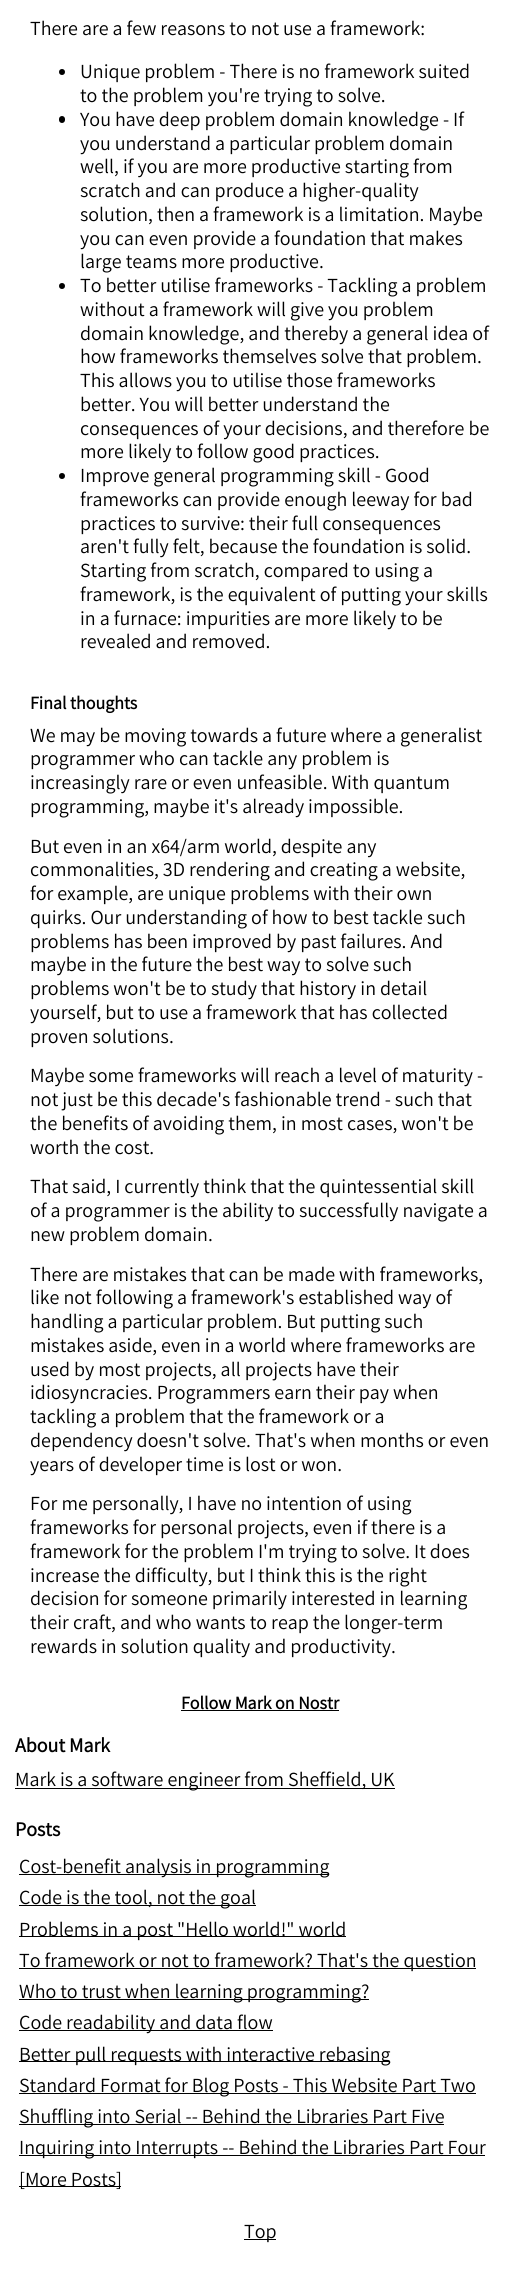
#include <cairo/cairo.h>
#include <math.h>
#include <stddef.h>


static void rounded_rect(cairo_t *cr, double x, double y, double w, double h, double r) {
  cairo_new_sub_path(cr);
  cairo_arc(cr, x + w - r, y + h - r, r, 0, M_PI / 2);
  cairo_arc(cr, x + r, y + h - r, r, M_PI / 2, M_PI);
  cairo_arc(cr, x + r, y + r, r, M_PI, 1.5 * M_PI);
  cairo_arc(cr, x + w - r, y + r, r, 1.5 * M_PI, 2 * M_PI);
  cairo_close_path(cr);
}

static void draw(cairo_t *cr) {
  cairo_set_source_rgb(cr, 1, 1, 1);
  cairo_paint(cr);
  cairo_set_source_rgb(cr, 0, 0, 0);
  cairo_arc(cr, 62, 72, 3, 0, 2 * M_PI);
  cairo_fill(cr);
  rounded_rect(cr, 59, 116, 6, 7, 3);
  cairo_fill(cr);
  cairo_arc(cr, 62, 286, 3, 0, 2 * M_PI);
  cairo_fill(cr);
  cairo_arc(cr, 62, 476, 3, 0, 2 * M_PI);
  cairo_fill(cr);
  cairo_rectangle(cr, 181, 1710, 158, 1);
  cairo_fill(cr);
  cairo_rectangle(cr, 15, 1788, 380, 1);
  cairo_fill(cr);
  cairo_rectangle(cr, 19, 1874, 310, 1);
  cairo_fill(cr);
  cairo_rectangle(cr, 19, 1905, 237, 1);
  cairo_fill(cr);
  cairo_rectangle(cr, 19, 1936, 327, 1);
  cairo_fill(cr);
  cairo_rectangle(cr, 19, 1968, 457, 1);
  cairo_fill(cr);
  cairo_rectangle(cr, 19, 1999, 350, 1);
  cairo_fill(cr);
  cairo_rectangle(cr, 19, 2030, 254, 1);
  cairo_fill(cr);
  cairo_rectangle(cr, 19, 2061, 371, 1);
  cairo_fill(cr);
  cairo_rectangle(cr, 19, 2093, 457, 1);
  cairo_fill(cr);
  cairo_rectangle(cr, 19, 2124, 425, 1);
  cairo_fill(cr);
  cairo_rectangle(cr, 19, 2155, 466, 1);
  cairo_fill(cr);
  cairo_rectangle(cr, 19, 2186, 102, 1);
  cairo_fill(cr);
  cairo_rectangle(cr, 244, 2239, 32, 1);
  cairo_fill(cr);
  cairo_select_font_face(cr, "Assistant", CAIRO_FONT_SLANT_NORMAL, CAIRO_FONT_WEIGHT_NORMAL);
  cairo_set_font_size(cr, 20);
  cairo_move_to(cr, 30, 35);
  cairo_show_text(cr, "There are a few reasons to not use a framework:");
  cairo_move_to(cr, 80, 78);
  cairo_show_text(cr, "Unique problem - There is no framework suited");
  cairo_move_to(cr, 80, 102);
  cairo_show_text(cr, "to the problem you're trying to solve.");
  cairo_move_to(cr, 80, 126);
  cairo_show_text(cr, "You have deep problem domain knowledge - If");
  cairo_move_to(cr, 80, 150);
  cairo_show_text(cr, "you understand a particular problem domain");
  cairo_move_to(cr, 80, 173);
  cairo_show_text(cr, "well, if you are more productive starting from");
  cairo_move_to(cr, 80, 197);
  cairo_show_text(cr, "scratch and can produce a higher-quality");
  cairo_move_to(cr, 80, 221);
  cairo_show_text(cr, "solution, then a framework is a limitation. Maybe");
  cairo_move_to(cr, 80, 245);
  cairo_show_text(cr, "you can even provide a foundation that makes");
  cairo_move_to(cr, 80, 268);
  cairo_show_text(cr, "large teams more productive.");
  cairo_move_to(cr, 80, 292);
  cairo_show_text(cr, "To better utilise frameworks - Tackling a problem");
  cairo_move_to(cr, 80, 316);
  cairo_show_text(cr, "without a framework will give you problem");
  cairo_move_to(cr, 80, 340);
  cairo_show_text(cr, "domain knowledge, and thereby a general idea of");
  cairo_move_to(cr, 80, 363);
  cairo_show_text(cr, "how frameworks themselves solve that problem.");
  cairo_move_to(cr, 80, 387);
  cairo_show_text(cr, "This allows you to utilise those frameworks");
  cairo_move_to(cr, 80, 411);
  cairo_show_text(cr, "better. You will better understand the");
  cairo_move_to(cr, 80, 435);
  cairo_show_text(cr, "consequences of your decisions, and therefore be");
  cairo_move_to(cr, 80, 458);
  cairo_show_text(cr, "more likely to follow good practices.");
  cairo_move_to(cr, 80, 482);
  cairo_show_text(cr, "Improve general programming skill - Good");
  cairo_move_to(cr, 80, 506);
  cairo_show_text(cr, "frameworks can provide enough leeway for bad");
  cairo_move_to(cr, 80, 530);
  cairo_show_text(cr, "practices to survive: their full consequences");
  cairo_move_to(cr, 80, 553);
  cairo_show_text(cr, "aren't fully felt, because the foundation is solid.");
  cairo_move_to(cr, 80, 577);
  cairo_show_text(cr, "Starting from scratch, compared to using a");
  cairo_move_to(cr, 80, 601);
  cairo_show_text(cr, "framework, is the equivalent of putting your skills");
  cairo_move_to(cr, 80, 625);
  cairo_show_text(cr, "in a furnace: impurities are more likely to be");
  cairo_move_to(cr, 80, 648);
  cairo_show_text(cr, "revealed and removed.");
  cairo_select_font_face(cr, "Assistant", CAIRO_FONT_SLANT_NORMAL, CAIRO_FONT_WEIGHT_BOLD);
  cairo_set_font_size(cr, 18);
  cairo_move_to(cr, 30, 709);
  cairo_show_text(cr, "Final thoughts");
  cairo_select_font_face(cr, "Assistant", CAIRO_FONT_SLANT_NORMAL, CAIRO_FONT_WEIGHT_NORMAL);
  cairo_set_font_size(cr, 20);
  cairo_move_to(cr, 30, 742);
  cairo_show_text(cr, "We may be moving towards a future where a generalist");
  cairo_move_to(cr, 30, 765);
  cairo_show_text(cr, "programmer who can tackle any problem is");
  cairo_move_to(cr, 30, 789);
  cairo_show_text(cr, "increasingly rare or even unfeasible. With quantum");
  cairo_move_to(cr, 30, 813);
  cairo_show_text(cr, "programming, maybe it's already impossible.");
  cairo_move_to(cr, 30, 853);
  cairo_show_text(cr, "But even in an x64/arm world, despite any");
  cairo_move_to(cr, 30, 876);
  cairo_show_text(cr, "commonalities, 3D rendering and creating a website,");
  cairo_move_to(cr, 30, 900);
  cairo_show_text(cr, "for example, are unique problems with their own");
  cairo_move_to(cr, 30, 924);
  cairo_show_text(cr, "quirks. Our understanding of how to best tackle such");
  cairo_move_to(cr, 30, 948);
  cairo_show_text(cr, "problems has been improved by past failures. And");
  cairo_move_to(cr, 30, 971);
  cairo_show_text(cr, "maybe in the future the best way to solve such");
  cairo_move_to(cr, 30, 995);
  cairo_show_text(cr, "problems won't be to study that history in detail");
  cairo_move_to(cr, 30, 1019);
  cairo_show_text(cr, "yourself, but to use a framework that has collected");
  cairo_move_to(cr, 30, 1043);
  cairo_show_text(cr, "proven solutions.");
  cairo_move_to(cr, 30, 1082);
  cairo_show_text(cr, "Maybe some frameworks will reach a level of maturity -");
  cairo_move_to(cr, 30, 1106);
  cairo_show_text(cr, "not just be this decade's fashionable trend - such that");
  cairo_move_to(cr, 30, 1130);
  cairo_show_text(cr, "the benefits of avoiding them, in most cases, won't be");
  cairo_move_to(cr, 30, 1154);
  cairo_show_text(cr, "worth the cost.");
  cairo_move_to(cr, 30, 1193);
  cairo_show_text(cr, "That said, I currently think that the quintessential skill");
  cairo_move_to(cr, 30, 1217);
  cairo_show_text(cr, "of a programmer is the ability to successfully navigate a");
  cairo_move_to(cr, 30, 1241);
  cairo_show_text(cr, "new problem domain.");
  cairo_move_to(cr, 30, 1281);
  cairo_show_text(cr, "There are mistakes that can be made with frameworks,");
  cairo_move_to(cr, 30, 1304);
  cairo_show_text(cr, "like not following a framework's established way of");
  cairo_move_to(cr, 30, 1328);
  cairo_show_text(cr, "handling a particular problem. But putting such");
  cairo_move_to(cr, 30, 1352);
  cairo_show_text(cr, "mistakes aside, even in a world where frameworks are");
  cairo_move_to(cr, 30, 1376);
  cairo_show_text(cr, "used by most projects, all projects have their");
  cairo_move_to(cr, 30, 1399);
  cairo_show_text(cr, "idiosyncracies. Programmers earn their pay when");
  cairo_move_to(cr, 30, 1423);
  cairo_show_text(cr, "tackling a problem that the framework or a");
  cairo_move_to(cr, 30, 1447);
  cairo_show_text(cr, "dependency doesn't solve. That's when months or even");
  cairo_move_to(cr, 30, 1471);
  cairo_show_text(cr, "years of developer time is lost or won.");
  cairo_move_to(cr, 30, 1510);
  cairo_show_text(cr, "For me personally, I have no intention of using");
  cairo_move_to(cr, 30, 1534);
  cairo_show_text(cr, "frameworks for personal projects, even if there is a");
  cairo_move_to(cr, 30, 1558);
  cairo_show_text(cr, "framework for the problem I'm trying to solve. It does");
  cairo_move_to(cr, 30, 1582);
  cairo_show_text(cr, "increase the difficulty, but I think this is the right");
  cairo_move_to(cr, 30, 1605);
  cairo_show_text(cr, "decision for someone primarily interested in learning");
  cairo_move_to(cr, 30, 1629);
  cairo_show_text(cr, "their craft, and who wants to reap the longer-term");
  cairo_move_to(cr, 30, 1653);
  cairo_show_text(cr, "rewards in solution quality and productivity.");
  cairo_select_font_face(cr, "Assistant", CAIRO_FONT_SLANT_NORMAL, CAIRO_FONT_WEIGHT_BOLD);
  cairo_set_font_size(cr, 18);
  cairo_move_to(cr, 181, 1709);
  cairo_show_text(cr, "Follow Mark on Nostr");
  cairo_set_font_size(cr, 20);
  cairo_move_to(cr, 15, 1752);
  cairo_show_text(cr, "About Mark");
  cairo_select_font_face(cr, "Assistant", CAIRO_FONT_SLANT_NORMAL, CAIRO_FONT_WEIGHT_NORMAL);
  cairo_move_to(cr, 15, 1786);
  cairo_show_text(cr, "Mark is a software engineer from Sheffield, UK");
  cairo_select_font_face(cr, "Assistant", CAIRO_FONT_SLANT_NORMAL, CAIRO_FONT_WEIGHT_BOLD);
  cairo_move_to(cr, 15, 1836);
  cairo_show_text(cr, "Posts");
  cairo_select_font_face(cr, "Assistant", CAIRO_FONT_SLANT_NORMAL, CAIRO_FONT_WEIGHT_NORMAL);
  cairo_move_to(cr, 19, 1873);
  cairo_show_text(cr, "Cost-benefit analysis in programming");
  cairo_move_to(cr, 19, 1904);
  cairo_show_text(cr, "Code is the tool, not the goal");
  cairo_move_to(cr, 19, 1936);
  cairo_show_text(cr, "Problems in a post \"Hello world!\" world");
  cairo_move_to(cr, 19, 1967);
  cairo_show_text(cr, "To framework or not to framework? That's the question");
  cairo_move_to(cr, 19, 1998);
  cairo_show_text(cr, "Who to trust when learning programming?");
  cairo_move_to(cr, 19, 2029);
  cairo_show_text(cr, "Code readability and data flow");
  cairo_move_to(cr, 19, 2061);
  cairo_show_text(cr, "Better pull requests with interactive rebasing");
  cairo_move_to(cr, 19, 2092);
  cairo_show_text(cr, "Standard Format for Blog Posts - This Website Part Two");
  cairo_move_to(cr, 19, 2123);
  cairo_show_text(cr, "Shuffling into Serial -- Behind the Libraries Part Five");
  cairo_move_to(cr, 19, 2154);
  cairo_show_text(cr, "Inquiring into Interrupts -- Behind the Libraries Part Four");
  cairo_move_to(cr, 19, 2186);
  cairo_show_text(cr, "[More Posts]");
  cairo_move_to(cr, 244, 2238);
  cairo_show_text(cr, "Top");
}

int main(void) {
  cairo_surface_t *surface = cairo_image_surface_create(CAIRO_FORMAT_RGB24, 520, 2283);
  cairo_t *cr = cairo_create(surface);
  cairo_font_options_t *options = cairo_font_options_create();
  cairo_font_options_set_hint_metrics(options, CAIRO_HINT_METRICS_OFF);
  cairo_font_options_set_hint_style(options, CAIRO_HINT_STYLE_NONE);
  cairo_set_font_options(cr, options);
  cairo_set_miter_limit(cr, 4);
  draw(cr);
  cairo_surface_write_to_png(surface, "out.png");
  cairo_font_options_destroy(options);
  cairo_destroy(cr);
  cairo_surface_destroy(surface);
  return 0;
}
